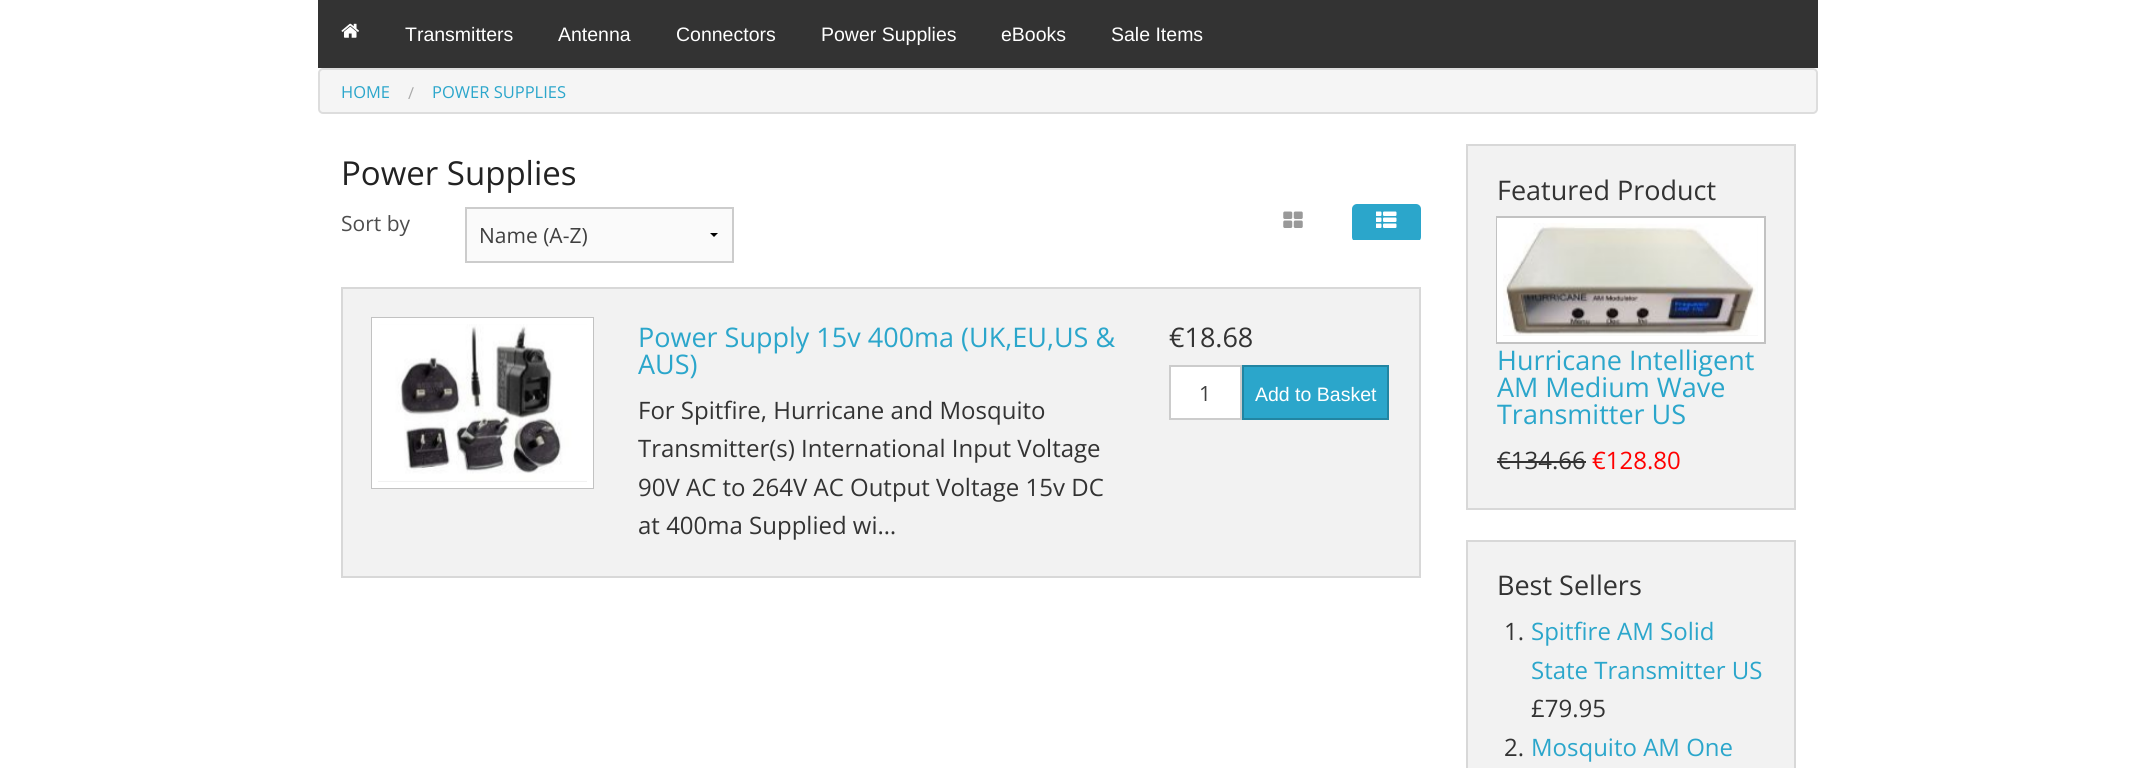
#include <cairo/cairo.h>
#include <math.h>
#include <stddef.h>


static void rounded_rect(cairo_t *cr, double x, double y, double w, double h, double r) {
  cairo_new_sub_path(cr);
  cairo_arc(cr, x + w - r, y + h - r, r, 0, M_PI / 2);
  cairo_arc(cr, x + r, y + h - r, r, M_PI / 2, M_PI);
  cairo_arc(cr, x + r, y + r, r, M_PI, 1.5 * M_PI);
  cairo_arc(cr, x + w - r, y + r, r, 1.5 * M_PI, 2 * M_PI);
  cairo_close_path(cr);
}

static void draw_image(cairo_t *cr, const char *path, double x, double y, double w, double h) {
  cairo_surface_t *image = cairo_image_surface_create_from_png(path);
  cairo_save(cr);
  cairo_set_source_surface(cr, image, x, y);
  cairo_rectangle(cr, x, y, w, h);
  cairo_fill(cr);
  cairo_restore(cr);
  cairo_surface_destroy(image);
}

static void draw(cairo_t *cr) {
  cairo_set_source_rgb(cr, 1, 1, 1);
  cairo_paint(cr);
  cairo_set_source_rgb(cr, 51 / 255.0, 51 / 255.0, 51 / 255.0);
  cairo_rectangle(cr, 318, 0, 1500, 68);
  cairo_fill(cr);
  draw_image(cr, "images/1.png", 341, 23, 18, 15);
  cairo_set_source_rgb(cr, 245 / 255.0, 245 / 255.0, 245 / 255.0);
  rounded_rect(cr, 319, 69, 1498, 44, 4);
  cairo_fill_preserve(cr);
  cairo_set_source_rgb(cr, 221 / 255.0, 221 / 255.0, 221 / 255.0);
  cairo_stroke(cr);
  cairo_set_source_rgb(cr, 250 / 255.0, 250 / 255.0, 250 / 255.0);
  cairo_rectangle(cr, 467, 209, 265, 52);
  cairo_fill(cr);
  cairo_save(cr);
  cairo_rectangle(cr, 696, 233, 36, 5);
  cairo_clip(cr);
  cairo_set_source_rgb(cr, 0, 0, 0);
  cairo_new_path(cr);
  cairo_move_to(cr, 718.5, 232.5);
  cairo_line_to(cr, 714, 237);
  cairo_line_to(cr, 709.5, 232.5);
  cairo_close_path(cr);
  cairo_fill(cr);
  cairo_restore(cr);
  cairo_rectangle(cr, 466, 208, 267, 54);
  cairo_set_source_rgb(cr, 204 / 255.0, 204 / 255.0, 204 / 255.0);
  cairo_stroke(cr);
  draw_image(cr, "images/2.png", 1283, 211, 20, 17);
  cairo_save(cr);
  cairo_rectangle(cr, 1235, 201, 186, 39);
  cairo_clip(cr);
  cairo_set_source_rgb(cr, 43 / 255.0, 166 / 255.0, 203 / 255.0);
  rounded_rect(cr, 1352, 204, 69, 38, 5);
  cairo_fill(cr);
  cairo_restore(cr);
  draw_image(cr, "images/3.png", 1376, 211, 21, 17);
  cairo_set_source_rgb(cr, 242 / 255.0, 242 / 255.0, 242 / 255.0);
  cairo_rectangle(cr, 342, 288, 1078, 289);
  cairo_fill_preserve(cr);
  cairo_set_source_rgb(cr, 216 / 255.0, 216 / 255.0, 216 / 255.0);
  cairo_stroke(cr);
  cairo_rectangle(cr, 372, 318, 221, 170);
  cairo_set_source_rgb(cr, 194 / 255.0, 194 / 255.0, 194 / 255.0);
  cairo_stroke(cr);
  cairo_rectangle(cr, 375, 321, 215, 164);
  cairo_set_source_rgb(cr, 1, 1, 1);
  cairo_set_line_width(cr, 6);
  cairo_stroke(cr);
  draw_image(cr, "images/4.png", 378, 324, 209, 157);
  cairo_rectangle(cr, 1170, 366, 71, 53);
  cairo_fill_preserve(cr);
  cairo_set_source_rgb(cr, 204 / 255.0, 204 / 255.0, 204 / 255.0);
  cairo_set_line_width(cr, 2);
  cairo_stroke(cr);
  cairo_set_source_rgb(cr, 43 / 255.0, 166 / 255.0, 203 / 255.0);
  cairo_rectangle(cr, 1243, 366, 145, 53);
  cairo_fill_preserve(cr);
  cairo_set_source_rgb(cr, 34 / 255.0, 133 / 255.0, 162 / 255.0);
  cairo_stroke(cr);
  cairo_set_source_rgb(cr, 242 / 255.0, 242 / 255.0, 242 / 255.0);
  cairo_rectangle(cr, 1467, 145, 328, 364);
  cairo_fill_preserve(cr);
  cairo_set_source_rgb(cr, 216 / 255.0, 216 / 255.0, 216 / 255.0);
  cairo_stroke(cr);
  cairo_rectangle(cr, 1497, 217, 268, 126);
  cairo_set_source_rgb(cr, 194 / 255.0, 194 / 255.0, 194 / 255.0);
  cairo_stroke(cr);
  cairo_rectangle(cr, 1500, 221, 261, 118);
  cairo_set_source_rgb(cr, 1, 1, 1);
  cairo_set_line_width(cr, 6);
  cairo_stroke(cr);
  draw_image(cr, "images/5.png", 1503, 223, 255, 113);
  cairo_set_source_rgb(cr, 51 / 255.0, 51 / 255.0, 51 / 255.0);
  cairo_rectangle(cr, 1497, 461, 89, 2);
  cairo_fill(cr);
  cairo_set_source_rgb(cr, 242 / 255.0, 242 / 255.0, 242 / 255.0);
  cairo_rectangle(cr, 1467, 541, 328, 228);
  cairo_fill_preserve(cr);
  cairo_set_source_rgb(cr, 216 / 255.0, 216 / 255.0, 216 / 255.0);
  cairo_set_line_width(cr, 2);
  cairo_stroke(cr);
  cairo_select_font_face(cr, "Liberation Sans", CAIRO_FONT_SLANT_NORMAL, CAIRO_FONT_WEIGHT_NORMAL);
  cairo_set_font_size(cr, 19.5);
  cairo_set_source_rgb(cr, 1, 1, 1);
  cairo_move_to(cr, 405, 41);
  cairo_show_text(cr, "Transmitters");
  cairo_move_to(cr, 558, 41);
  cairo_show_text(cr, "Antenna");
  cairo_move_to(cr, 676, 41);
  cairo_show_text(cr, "Connectors");
  cairo_move_to(cr, 821, 41);
  cairo_show_text(cr, "Power Supplies");
  cairo_move_to(cr, 1001, 41);
  cairo_show_text(cr, "eBooks");
  cairo_move_to(cr, 1111, 41);
  cairo_show_text(cr, "Sale Items");
  cairo_select_font_face(cr, "Open Sans", CAIRO_FONT_SLANT_NORMAL, CAIRO_FONT_WEIGHT_NORMAL);
  cairo_set_font_size(cr, 16.5);
  cairo_set_source_rgb(cr, 43 / 255.0, 166 / 255.0, 203 / 255.0);
  cairo_move_to(cr, 341, 98);
  cairo_show_text(cr, "HOME");
  cairo_set_source_rgb(cr, 170 / 255.0, 170 / 255.0, 170 / 255.0);
  cairo_move_to(cr, 408, 99);
  cairo_show_text(cr, "/");
  cairo_set_source_rgb(cr, 43 / 255.0, 166 / 255.0, 203 / 255.0);
  cairo_move_to(cr, 432, 98);
  cairo_show_text(cr, "POWER SUPPLIES");
  cairo_set_font_size(cr, 33);
  cairo_set_source_rgb(cr, 34 / 255.0, 34 / 255.0, 34 / 255.0);
  cairo_move_to(cr, 341, 185);
  cairo_show_text(cr, "Power Supplies");
  cairo_set_font_size(cr, 21);
  cairo_set_source_rgb(cr, 77 / 255.0, 77 / 255.0, 77 / 255.0);
  cairo_move_to(cr, 341, 231);
  cairo_show_text(cr, "Sort by");
  cairo_set_source_rgb(cr, 63 / 255.0, 63 / 255.0, 63 / 255.0);
  cairo_move_to(cr, 479, 243);
  cairo_show_text(cr, "Name (A-Z)");
  cairo_set_font_size(cr, 27);
  cairo_set_source_rgb(cr, 43 / 255.0, 166 / 255.0, 203 / 255.0);
  cairo_move_to(cr, 638, 347);
  cairo_show_text(cr, "Power Supply 15v 400ma (UK,EU,US &");
  cairo_move_to(cr, 638, 374);
  cairo_show_text(cr, "AUS)");
  cairo_set_font_size(cr, 24);
  cairo_set_source_rgb(cr, 51 / 255.0, 51 / 255.0, 51 / 255.0);
  cairo_move_to(cr, 638, 419);
  cairo_show_text(cr, "For Spitfire, Hurricane and Mosquito");
  cairo_move_to(cr, 638, 457);
  cairo_show_text(cr, "Transmitter(s) International Input Voltage");
  cairo_move_to(cr, 638, 496);
  cairo_show_text(cr, "90V AC to 264V AC Output Voltage 15v DC");
  cairo_move_to(cr, 638, 534);
  cairo_show_text(cr, "at 400ma Supplied wi…");
  cairo_set_font_size(cr, 27);
  cairo_move_to(cr, 1169, 347);
  cairo_show_text(cr, "€18.68");
  cairo_set_font_size(cr, 21);
  cairo_set_source_rgb(cr, 63 / 255.0, 63 / 255.0, 63 / 255.0);
  cairo_move_to(cr, 1199, 401);
  cairo_show_text(cr, "1");
  cairo_select_font_face(cr, "Liberation Sans", CAIRO_FONT_SLANT_NORMAL, CAIRO_FONT_WEIGHT_NORMAL);
  cairo_set_font_size(cr, 19.5);
  cairo_set_source_rgb(cr, 1, 1, 1);
  cairo_move_to(cr, 1255, 401);
  cairo_show_text(cr, "Add to Basket");
  cairo_select_font_face(cr, "Open Sans", CAIRO_FONT_SLANT_NORMAL, CAIRO_FONT_WEIGHT_NORMAL);
  cairo_set_font_size(cr, 27);
  cairo_set_source_rgb(cr, 51 / 255.0, 51 / 255.0, 51 / 255.0);
  cairo_move_to(cr, 1497, 200);
  cairo_show_text(cr, "Featured Product");
  cairo_set_source_rgb(cr, 43 / 255.0, 166 / 255.0, 203 / 255.0);
  cairo_move_to(cr, 1497, 370);
  cairo_show_text(cr, "Hurricane Intelligent");
  cairo_move_to(cr, 1497, 397);
  cairo_show_text(cr, "AM Medium Wave");
  cairo_move_to(cr, 1497, 424);
  cairo_show_text(cr, "Transmitter US");
  cairo_set_font_size(cr, 24);
  cairo_set_source_rgb(cr, 51 / 255.0, 51 / 255.0, 51 / 255.0);
  cairo_move_to(cr, 1497, 469);
  cairo_show_text(cr, "€134.66");
  cairo_set_source_rgb(cr, 1, 0, 0);
  cairo_move_to(cr, 1592, 469);
  cairo_show_text(cr, "€128.80");
  cairo_set_font_size(cr, 27);
  cairo_set_source_rgb(cr, 51 / 255.0, 51 / 255.0, 51 / 255.0);
  cairo_move_to(cr, 1497, 595);
  cairo_show_text(cr, "Best Sellers");
  cairo_set_font_size(cr, 24);
  cairo_move_to(cr, 1504, 640);
  cairo_show_text(cr, "1.");
  cairo_set_source_rgb(cr, 43 / 255.0, 166 / 255.0, 203 / 255.0);
  cairo_move_to(cr, 1531, 640);
  cairo_show_text(cr, "Spitfire AM Solid");
  cairo_move_to(cr, 1531, 679);
  cairo_show_text(cr, "State Transmitter US");
  cairo_set_source_rgb(cr, 51 / 255.0, 51 / 255.0, 51 / 255.0);
  cairo_move_to(cr, 1531, 717);
  cairo_show_text(cr, "£79.95");
  cairo_move_to(cr, 1504, 756);
  cairo_show_text(cr, "2.");
  cairo_set_source_rgb(cr, 43 / 255.0, 166 / 255.0, 203 / 255.0);
  cairo_move_to(cr, 1531, 756);
  cairo_show_text(cr, "Mosquito AM One");
}

int main(void) {
  cairo_surface_t *surface = cairo_image_surface_create(CAIRO_FORMAT_RGB24, 2135, 768);
  cairo_t *cr = cairo_create(surface);
  cairo_font_options_t *options = cairo_font_options_create();
  cairo_font_options_set_hint_metrics(options, CAIRO_HINT_METRICS_OFF);
  cairo_font_options_set_hint_style(options, CAIRO_HINT_STYLE_NONE);
  cairo_set_font_options(cr, options);
  cairo_set_miter_limit(cr, 4);
  draw(cr);
  cairo_surface_write_to_png(surface, "out.png");
  cairo_font_options_destroy(options);
  cairo_destroy(cr);
  cairo_surface_destroy(surface);
  return 0;
}
